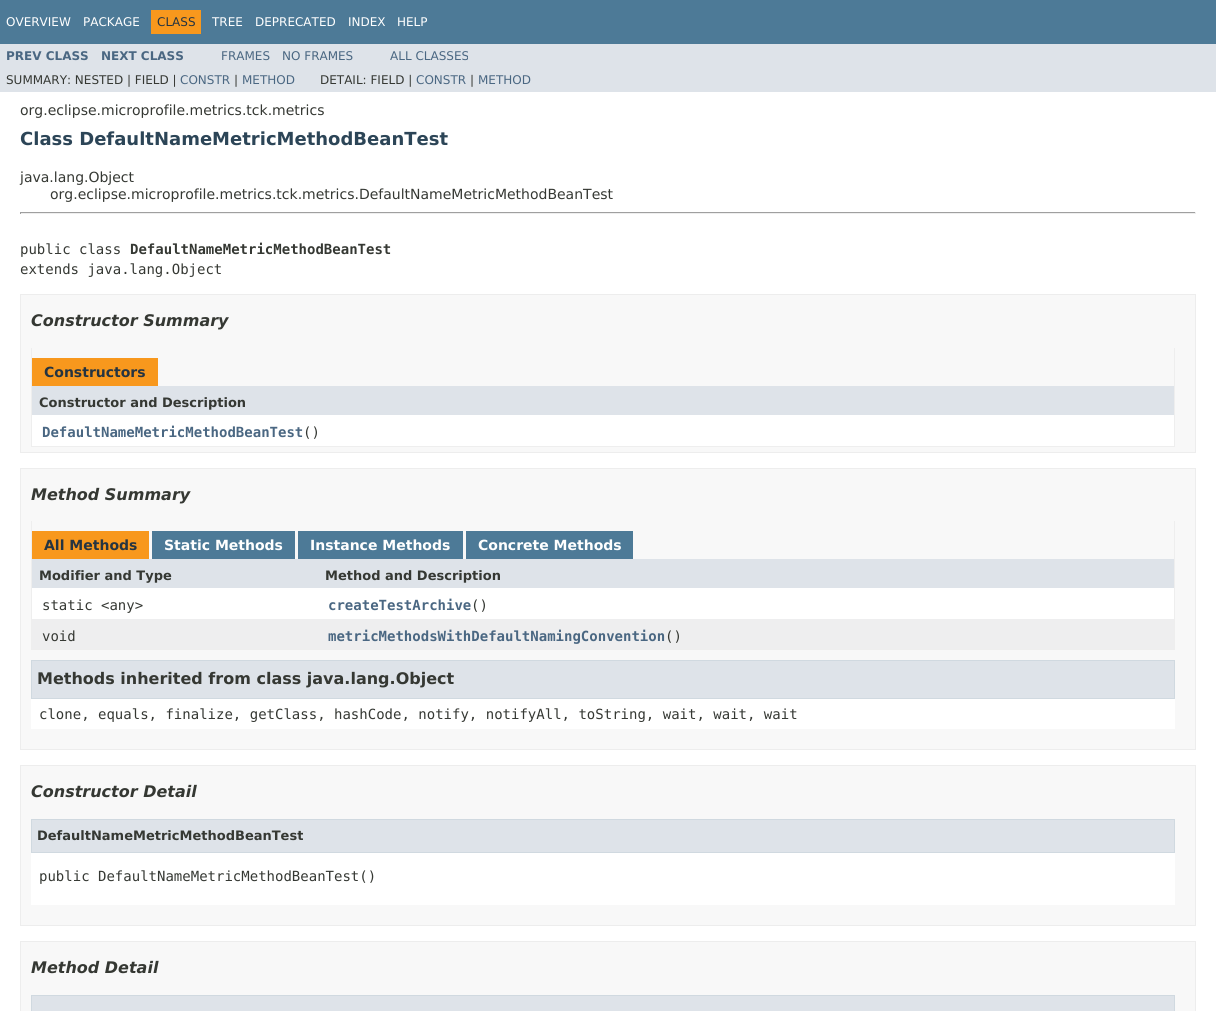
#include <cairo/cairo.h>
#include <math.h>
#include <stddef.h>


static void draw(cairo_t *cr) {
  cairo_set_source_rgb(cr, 1, 1, 1);
  cairo_paint(cr);
  cairo_set_source_rgb(cr, 77 / 255.0, 122 / 255.0, 151 / 255.0);
  cairo_rectangle(cr, 0, 0, 1216, 44);
  cairo_fill(cr);
  cairo_set_source_rgb(cr, 248 / 255.0, 152 / 255.0, 29 / 255.0);
  cairo_rectangle(cr, 151, 10, 50, 24);
  cairo_fill(cr);
  cairo_set_source_rgb(cr, 222 / 255.0, 227 / 255.0, 233 / 255.0);
  cairo_rectangle(cr, 0, 44, 1216, 48);
  cairo_fill(cr);
  cairo_set_source_rgb(cr, 159 / 255.0, 159 / 255.0, 159 / 255.0);
  cairo_rectangle(cr, 20, 212, 1176, 1);
  cairo_fill(cr);
  cairo_set_source_rgb(cr, 238 / 255.0, 238 / 255.0, 238 / 255.0);
  cairo_rectangle(cr, 1195, 212, 1, 2);
  cairo_fill(cr);
  cairo_rectangle(cr, 20, 213, 1176, 1);
  cairo_fill(cr);
  cairo_set_source_rgb(cr, 159 / 255.0, 159 / 255.0, 159 / 255.0);
  cairo_rectangle(cr, 20, 212, 1, 2);
  cairo_fill(cr);
  cairo_set_source_rgb(cr, 248 / 255.0, 248 / 255.0, 248 / 255.0);
  cairo_rectangle(cr, 20.5, 294.5, 1175, 158);
  cairo_fill_preserve(cr);
  cairo_set_source_rgb(cr, 237 / 255.0, 237 / 255.0, 237 / 255.0);
  cairo_set_line_width(cr, 1);
  cairo_stroke(cr);
  cairo_set_source_rgb(cr, 238 / 255.0, 238 / 255.0, 238 / 255.0);
  cairo_rectangle(cr, 1174, 348, 1, 99);
  cairo_fill(cr);
  cairo_rectangle(cr, 31, 446, 1144, 1);
  cairo_fill(cr);
  cairo_rectangle(cr, 31, 348, 1, 99);
  cairo_fill(cr);
  cairo_set_source_rgb(cr, 248 / 255.0, 152 / 255.0, 29 / 255.0);
  cairo_rectangle(cr, 32, 358, 126, 28);
  cairo_fill(cr);
  cairo_set_source_rgb(cr, 222 / 255.0, 227 / 255.0, 233 / 255.0);
  cairo_rectangle(cr, 32, 386, 1142, 29);
  cairo_fill(cr);
  cairo_set_source_rgb(cr, 1, 1, 1);
  cairo_rectangle(cr, 32, 415, 1142, 31);
  cairo_fill(cr);
  cairo_set_source_rgb(cr, 248 / 255.0, 248 / 255.0, 248 / 255.0);
  cairo_rectangle(cr, 20.5, 468.5, 1175, 281);
  cairo_fill_preserve(cr);
  cairo_set_source_rgb(cr, 237 / 255.0, 237 / 255.0, 237 / 255.0);
  cairo_stroke(cr);
  cairo_set_source_rgb(cr, 238 / 255.0, 238 / 255.0, 238 / 255.0);
  cairo_rectangle(cr, 1174, 521, 1, 129);
  cairo_fill(cr);
  cairo_rectangle(cr, 31, 649, 1144, 1);
  cairo_fill(cr);
  cairo_rectangle(cr, 31, 521, 1, 129);
  cairo_fill(cr);
  cairo_set_source_rgb(cr, 248 / 255.0, 152 / 255.0, 29 / 255.0);
  cairo_rectangle(cr, 32, 531, 117, 28);
  cairo_fill(cr);
  cairo_set_source_rgb(cr, 77 / 255.0, 122 / 255.0, 151 / 255.0);
  cairo_rectangle(cr, 152, 531, 143, 28);
  cairo_fill(cr);
  cairo_rectangle(cr, 298, 531, 165, 28);
  cairo_fill(cr);
  cairo_rectangle(cr, 466, 531, 167, 28);
  cairo_fill(cr);
  cairo_set_source_rgb(cr, 222 / 255.0, 227 / 255.0, 233 / 255.0);
  cairo_rectangle(cr, 32, 559, 1142, 29);
  cairo_fill(cr);
  cairo_set_source_rgb(cr, 1, 1, 1);
  cairo_rectangle(cr, 32, 588, 1142, 31);
  cairo_fill(cr);
  cairo_set_source_rgb(cr, 238 / 255.0, 238 / 255.0, 239 / 255.0);
  cairo_rectangle(cr, 32, 619, 1142, 30);
  cairo_fill(cr);
  cairo_set_source_rgb(cr, 1, 1, 1);
  cairo_rectangle(cr, 31, 699, 1144, 30);
  cairo_fill(cr);
  cairo_set_source_rgb(cr, 222 / 255.0, 227 / 255.0, 233 / 255.0);
  cairo_rectangle(cr, 31.5, 660.5, 1143, 38);
  cairo_fill_preserve(cr);
  cairo_set_source_rgb(cr, 208 / 255.0, 217 / 255.0, 224 / 255.0);
  cairo_stroke(cr);
  cairo_set_source_rgb(cr, 248 / 255.0, 248 / 255.0, 248 / 255.0);
  cairo_rectangle(cr, 20.5, 765.5, 1175, 160);
  cairo_fill_preserve(cr);
  cairo_set_source_rgb(cr, 237 / 255.0, 237 / 255.0, 237 / 255.0);
  cairo_stroke(cr);
  cairo_set_source_rgb(cr, 1, 1, 1);
  cairo_rectangle(cr, 31, 853, 1144, 52);
  cairo_fill(cr);
  cairo_set_source_rgb(cr, 222 / 255.0, 227 / 255.0, 233 / 255.0);
  cairo_rectangle(cr, 31.5, 819.5, 1143, 33);
  cairo_fill_preserve(cr);
  cairo_set_source_rgb(cr, 208 / 255.0, 217 / 255.0, 224 / 255.0);
  cairo_stroke(cr);
  cairo_set_source_rgb(cr, 248 / 255.0, 248 / 255.0, 248 / 255.0);
  cairo_rectangle(cr, 20.5, 941.5, 1175, 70);
  cairo_fill_preserve(cr);
  cairo_set_source_rgb(cr, 237 / 255.0, 237 / 255.0, 237 / 255.0);
  cairo_stroke(cr);
  cairo_set_source_rgb(cr, 222 / 255.0, 227 / 255.0, 233 / 255.0);
  cairo_rectangle(cr, 31.5, 995.5, 1143, 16);
  cairo_fill_preserve(cr);
  cairo_set_source_rgb(cr, 208 / 255.0, 217 / 255.0, 224 / 255.0);
  cairo_stroke(cr);
  cairo_select_font_face(cr, "DejaVu Sans", CAIRO_FONT_SLANT_NORMAL, CAIRO_FONT_WEIGHT_NORMAL);
  cairo_set_font_size(cr, 12);
  cairo_set_source_rgb(cr, 1, 1, 1);
  cairo_move_to(cr, 6, 26);
  cairo_show_text(cr, "OVERVIEW");
  cairo_move_to(cr, 83, 26);
  cairo_show_text(cr, "PACKAGE");
  cairo_set_source_rgb(cr, 37 / 255.0, 52 / 255.0, 65 / 255.0);
  cairo_move_to(cr, 157, 26);
  cairo_show_text(cr, "CLASS");
  cairo_set_source_rgb(cr, 1, 1, 1);
  cairo_move_to(cr, 212, 26);
  cairo_show_text(cr, "TREE");
  cairo_move_to(cr, 255, 26);
  cairo_show_text(cr, "DEPRECATED");
  cairo_move_to(cr, 348, 26);
  cairo_show_text(cr, "INDEX");
  cairo_move_to(cr, 397, 26);
  cairo_show_text(cr, "HELP");
  cairo_select_font_face(cr, "DejaVu Sans", CAIRO_FONT_SLANT_NORMAL, CAIRO_FONT_WEIGHT_BOLD);
  cairo_set_source_rgb(cr, 74 / 255.0, 103 / 255.0, 130 / 255.0);
  cairo_move_to(cr, 6, 60);
  cairo_show_text(cr, "PREV CLASS");
  cairo_move_to(cr, 101, 60);
  cairo_show_text(cr, "NEXT CLASS");
  cairo_select_font_face(cr, "DejaVu Sans", CAIRO_FONT_SLANT_NORMAL, CAIRO_FONT_WEIGHT_NORMAL);
  cairo_move_to(cr, 221, 60);
  cairo_show_text(cr, "FRAMES");
  cairo_move_to(cr, 282, 60);
  cairo_show_text(cr, "NO FRAMES");
  cairo_move_to(cr, 390, 60);
  cairo_show_text(cr, "ALL CLASSES");
  cairo_set_source_rgb(cr, 53 / 255.0, 56 / 255.0, 51 / 255.0);
  cairo_move_to(cr, 6, 84);
  cairo_show_text(cr, "SUMMARY: NESTED | FIELD |");
  cairo_set_source_rgb(cr, 74 / 255.0, 103 / 255.0, 130 / 255.0);
  cairo_move_to(cr, 180, 84);
  cairo_show_text(cr, "CONSTR");
  cairo_set_source_rgb(cr, 53 / 255.0, 56 / 255.0, 51 / 255.0);
  cairo_move_to(cr, 234, 84);
  cairo_show_text(cr, "|");
  cairo_set_source_rgb(cr, 74 / 255.0, 103 / 255.0, 130 / 255.0);
  cairo_move_to(cr, 242, 84);
  cairo_show_text(cr, "METHOD");
  cairo_set_source_rgb(cr, 53 / 255.0, 56 / 255.0, 51 / 255.0);
  cairo_move_to(cr, 320, 84);
  cairo_show_text(cr, "DETAIL: FIELD |");
  cairo_set_source_rgb(cr, 74 / 255.0, 103 / 255.0, 130 / 255.0);
  cairo_move_to(cr, 416, 84);
  cairo_show_text(cr, "CONSTR");
  cairo_set_source_rgb(cr, 53 / 255.0, 56 / 255.0, 51 / 255.0);
  cairo_move_to(cr, 470, 84);
  cairo_show_text(cr, "|");
  cairo_set_source_rgb(cr, 74 / 255.0, 103 / 255.0, 130 / 255.0);
  cairo_move_to(cr, 478, 84);
  cairo_show_text(cr, "METHOD");
  cairo_set_font_size(cr, 14);
  cairo_set_source_rgb(cr, 53 / 255.0, 56 / 255.0, 51 / 255.0);
  cairo_move_to(cr, 20, 115);
  cairo_show_text(cr, "org.eclipse.microprofile.metrics.tck.metrics");
  cairo_select_font_face(cr, "DejaVu Sans", CAIRO_FONT_SLANT_NORMAL, CAIRO_FONT_WEIGHT_BOLD);
  cairo_set_font_size(cr, 18);
  cairo_set_source_rgb(cr, 44 / 255.0, 69 / 255.0, 87 / 255.0);
  cairo_move_to(cr, 20, 145);
  cairo_show_text(cr, "Class DefaultNameMetricMethodBeanTest");
  cairo_select_font_face(cr, "DejaVu Sans", CAIRO_FONT_SLANT_NORMAL, CAIRO_FONT_WEIGHT_NORMAL);
  cairo_set_font_size(cr, 14);
  cairo_set_source_rgb(cr, 53 / 255.0, 56 / 255.0, 51 / 255.0);
  cairo_move_to(cr, 20, 182);
  cairo_show_text(cr, "java.lang.Object");
  cairo_move_to(cr, 50, 199);
  cairo_show_text(cr, "org.eclipse.microprofile.metrics.tck.metrics.DefaultNameMetricMethodBeanTest");
  cairo_select_font_face(cr, "DejaVu Sans Mono", CAIRO_FONT_SLANT_NORMAL, CAIRO_FONT_WEIGHT_NORMAL);
  cairo_move_to(cr, 20, 254);
  cairo_show_text(cr, "public class");
  cairo_select_font_face(cr, "DejaVu Sans Mono", CAIRO_FONT_SLANT_NORMAL, CAIRO_FONT_WEIGHT_BOLD);
  cairo_move_to(cr, 130, 254);
  cairo_show_text(cr, "DefaultNameMetricMethodBeanTest");
  cairo_select_font_face(cr, "DejaVu Sans Mono", CAIRO_FONT_SLANT_NORMAL, CAIRO_FONT_WEIGHT_NORMAL);
  cairo_move_to(cr, 20, 274);
  cairo_show_text(cr, "extends java.lang.Object");
  cairo_select_font_face(cr, "DejaVu Sans", CAIRO_FONT_SLANT_ITALIC, CAIRO_FONT_WEIGHT_BOLD);
  cairo_set_font_size(cr, 16);
  cairo_move_to(cr, 31, 326);
  cairo_show_text(cr, "Constructor Summary");
  cairo_select_font_face(cr, "DejaVu Sans", CAIRO_FONT_SLANT_NORMAL, CAIRO_FONT_WEIGHT_BOLD);
  cairo_set_font_size(cr, 14);
  cairo_set_source_rgb(cr, 37 / 255.0, 52 / 255.0, 65 / 255.0);
  cairo_move_to(cr, 44, 377);
  cairo_show_text(cr, "Constructors");
  cairo_set_font_size(cr, 13);
  cairo_set_source_rgb(cr, 53 / 255.0, 56 / 255.0, 51 / 255.0);
  cairo_move_to(cr, 39, 407);
  cairo_show_text(cr, "Constructor and Description");
  cairo_select_font_face(cr, "DejaVu Sans Mono", CAIRO_FONT_SLANT_NORMAL, CAIRO_FONT_WEIGHT_BOLD);
  cairo_set_font_size(cr, 14);
  cairo_set_source_rgb(cr, 74 / 255.0, 103 / 255.0, 130 / 255.0);
  cairo_move_to(cr, 42, 437);
  cairo_show_text(cr, "DefaultNameMetricMethodBeanTest");
  cairo_select_font_face(cr, "DejaVu Sans Mono", CAIRO_FONT_SLANT_NORMAL, CAIRO_FONT_WEIGHT_NORMAL);
  cairo_set_source_rgb(cr, 53 / 255.0, 56 / 255.0, 51 / 255.0);
  cairo_move_to(cr, 303, 437);
  cairo_show_text(cr, "()");
  cairo_select_font_face(cr, "DejaVu Sans", CAIRO_FONT_SLANT_ITALIC, CAIRO_FONT_WEIGHT_BOLD);
  cairo_set_font_size(cr, 16);
  cairo_move_to(cr, 31, 500);
  cairo_show_text(cr, "Method Summary");
  cairo_select_font_face(cr, "DejaVu Sans", CAIRO_FONT_SLANT_NORMAL, CAIRO_FONT_WEIGHT_BOLD);
  cairo_set_font_size(cr, 14);
  cairo_set_source_rgb(cr, 37 / 255.0, 52 / 255.0, 65 / 255.0);
  cairo_move_to(cr, 44, 550);
  cairo_show_text(cr, "All Methods");
  cairo_set_source_rgb(cr, 1, 1, 1);
  cairo_move_to(cr, 164, 550);
  cairo_show_text(cr, "Static Methods");
  cairo_move_to(cr, 310, 550);
  cairo_show_text(cr, "Instance Methods");
  cairo_move_to(cr, 478, 550);
  cairo_show_text(cr, "Concrete Methods");
  cairo_set_font_size(cr, 13);
  cairo_set_source_rgb(cr, 53 / 255.0, 56 / 255.0, 51 / 255.0);
  cairo_move_to(cr, 39, 580);
  cairo_show_text(cr, "Modifier and Type");
  cairo_move_to(cr, 325, 580);
  cairo_show_text(cr, "Method and Description");
  cairo_select_font_face(cr, "DejaVu Sans Mono", CAIRO_FONT_SLANT_NORMAL, CAIRO_FONT_WEIGHT_NORMAL);
  cairo_set_font_size(cr, 14);
  cairo_move_to(cr, 42, 610);
  cairo_show_text(cr, "static <any>");
  cairo_select_font_face(cr, "DejaVu Sans Mono", CAIRO_FONT_SLANT_NORMAL, CAIRO_FONT_WEIGHT_BOLD);
  cairo_set_source_rgb(cr, 74 / 255.0, 103 / 255.0, 130 / 255.0);
  cairo_move_to(cr, 328, 610);
  cairo_show_text(cr, "createTestArchive");
  cairo_select_font_face(cr, "DejaVu Sans Mono", CAIRO_FONT_SLANT_NORMAL, CAIRO_FONT_WEIGHT_NORMAL);
  cairo_set_source_rgb(cr, 53 / 255.0, 56 / 255.0, 51 / 255.0);
  cairo_move_to(cr, 471, 610);
  cairo_show_text(cr, "()");
  cairo_move_to(cr, 42, 641);
  cairo_show_text(cr, "void");
  cairo_select_font_face(cr, "DejaVu Sans Mono", CAIRO_FONT_SLANT_NORMAL, CAIRO_FONT_WEIGHT_BOLD);
  cairo_set_source_rgb(cr, 74 / 255.0, 103 / 255.0, 130 / 255.0);
  cairo_move_to(cr, 328, 641);
  cairo_show_text(cr, "metricMethodsWithDefaultNamingConvention");
  cairo_select_font_face(cr, "DejaVu Sans Mono", CAIRO_FONT_SLANT_NORMAL, CAIRO_FONT_WEIGHT_NORMAL);
  cairo_set_source_rgb(cr, 53 / 255.0, 56 / 255.0, 51 / 255.0);
  cairo_move_to(cr, 665, 641);
  cairo_show_text(cr, "()");
  cairo_select_font_face(cr, "DejaVu Sans", CAIRO_FONT_SLANT_NORMAL, CAIRO_FONT_WEIGHT_BOLD);
  cairo_set_font_size(cr, 16);
  cairo_move_to(cr, 37, 684);
  cairo_show_text(cr, "Methods inherited from class java.lang.Object");
  cairo_select_font_face(cr, "DejaVu Sans Mono", CAIRO_FONT_SLANT_NORMAL, CAIRO_FONT_WEIGHT_NORMAL);
  cairo_set_font_size(cr, 14);
  cairo_move_to(cr, 39, 719);
  cairo_show_text(cr, "clone, equals, finalize, getClass, hashCode, notify, notifyAll, toString, wait, wait, wait");
  cairo_select_font_face(cr, "DejaVu Sans", CAIRO_FONT_SLANT_ITALIC, CAIRO_FONT_WEIGHT_BOLD);
  cairo_set_font_size(cr, 16);
  cairo_move_to(cr, 31, 797);
  cairo_show_text(cr, "Constructor Detail");
  cairo_select_font_face(cr, "DejaVu Sans", CAIRO_FONT_SLANT_NORMAL, CAIRO_FONT_WEIGHT_BOLD);
  cairo_set_font_size(cr, 13);
  cairo_move_to(cr, 37, 840);
  cairo_show_text(cr, "DefaultNameMetricMethodBeanTest");
  cairo_select_font_face(cr, "DejaVu Sans Mono", CAIRO_FONT_SLANT_NORMAL, CAIRO_FONT_WEIGHT_NORMAL);
  cairo_set_font_size(cr, 14);
  cairo_move_to(cr, 39, 881);
  cairo_show_text(cr, "public DefaultNameMetricMethodBeanTest()");
  cairo_select_font_face(cr, "DejaVu Sans", CAIRO_FONT_SLANT_ITALIC, CAIRO_FONT_WEIGHT_BOLD);
  cairo_set_font_size(cr, 16);
  cairo_move_to(cr, 31, 973);
  cairo_show_text(cr, "Method Detail");
}

int main(void) {
  cairo_surface_t *surface = cairo_image_surface_create(CAIRO_FORMAT_RGB24, 1216, 1011);
  cairo_t *cr = cairo_create(surface);
  cairo_font_options_t *options = cairo_font_options_create();
  cairo_font_options_set_hint_metrics(options, CAIRO_HINT_METRICS_OFF);
  cairo_font_options_set_hint_style(options, CAIRO_HINT_STYLE_NONE);
  cairo_set_font_options(cr, options);
  cairo_set_miter_limit(cr, 4);
  draw(cr);
  cairo_surface_write_to_png(surface, "out.png");
  cairo_font_options_destroy(options);
  cairo_destroy(cr);
  cairo_surface_destroy(surface);
  return 0;
}
